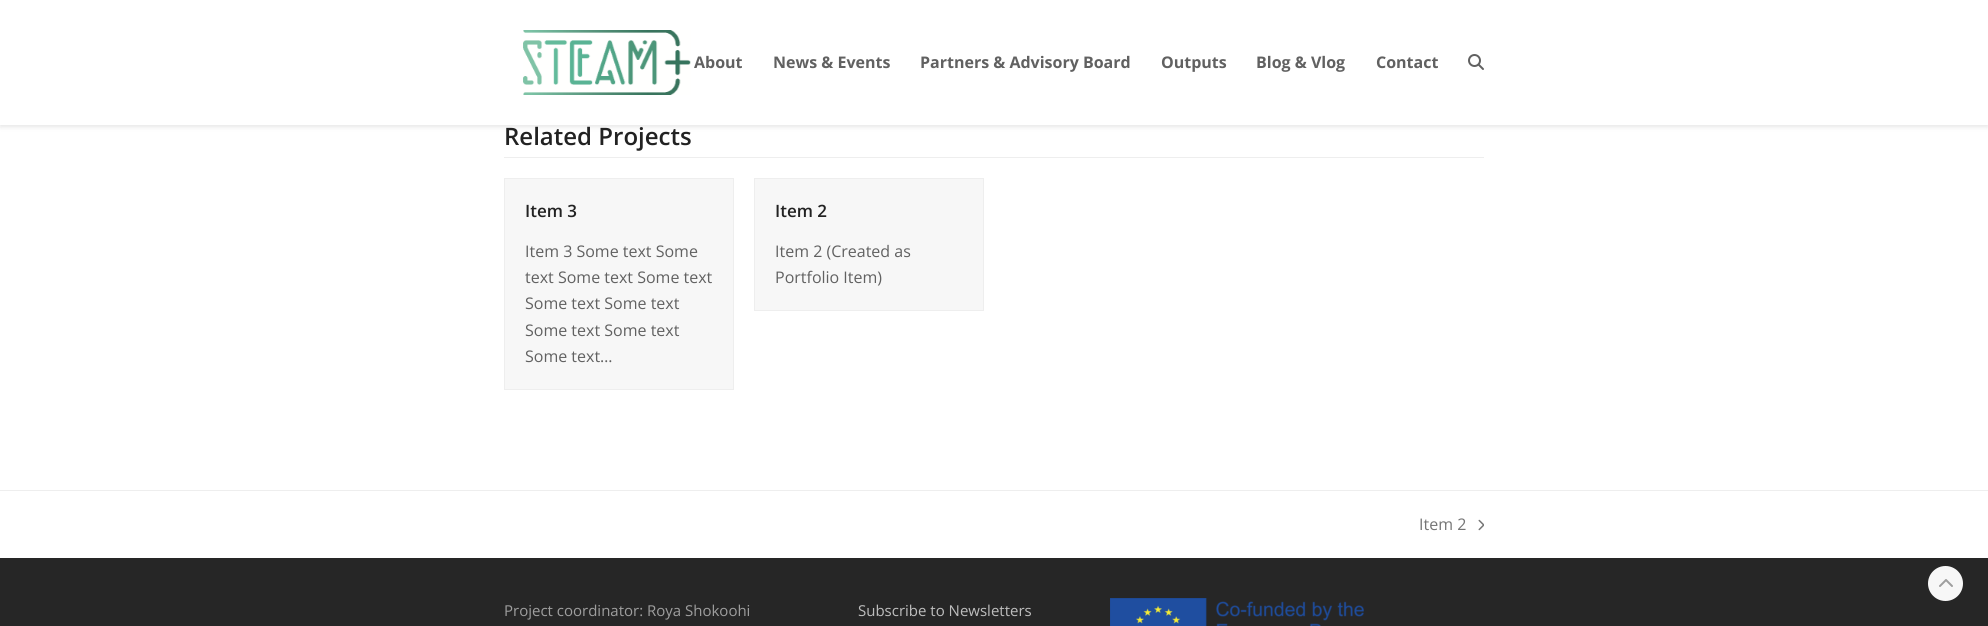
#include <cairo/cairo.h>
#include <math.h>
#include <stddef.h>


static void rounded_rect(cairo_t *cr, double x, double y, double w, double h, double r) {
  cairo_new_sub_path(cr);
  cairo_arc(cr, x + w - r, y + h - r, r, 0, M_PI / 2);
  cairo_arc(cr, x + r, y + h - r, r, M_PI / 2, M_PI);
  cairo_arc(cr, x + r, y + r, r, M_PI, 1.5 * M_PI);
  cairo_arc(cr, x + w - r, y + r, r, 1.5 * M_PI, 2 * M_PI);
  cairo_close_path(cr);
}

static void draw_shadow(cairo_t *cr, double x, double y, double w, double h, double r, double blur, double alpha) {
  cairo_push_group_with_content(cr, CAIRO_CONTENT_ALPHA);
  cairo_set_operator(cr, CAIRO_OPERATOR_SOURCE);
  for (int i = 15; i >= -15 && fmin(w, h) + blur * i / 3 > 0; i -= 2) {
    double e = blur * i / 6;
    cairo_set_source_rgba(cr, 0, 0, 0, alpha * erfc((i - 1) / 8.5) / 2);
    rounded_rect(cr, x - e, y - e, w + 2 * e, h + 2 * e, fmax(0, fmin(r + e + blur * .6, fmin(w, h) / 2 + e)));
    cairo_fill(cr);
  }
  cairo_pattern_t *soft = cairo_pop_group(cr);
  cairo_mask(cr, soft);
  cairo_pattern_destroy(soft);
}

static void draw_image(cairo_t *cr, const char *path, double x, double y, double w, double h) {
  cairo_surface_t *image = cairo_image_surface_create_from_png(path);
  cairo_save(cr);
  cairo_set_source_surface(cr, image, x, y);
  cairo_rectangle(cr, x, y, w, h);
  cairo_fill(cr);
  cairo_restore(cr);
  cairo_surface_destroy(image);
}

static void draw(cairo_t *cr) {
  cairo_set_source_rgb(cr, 1, 1, 1);
  cairo_paint(cr);
  cairo_set_source_rgb(cr, 0, 0, 0);
  draw_shadow(cr, 0, 2, 1988, 125, 0, 2.5, 0.1);
  cairo_set_source_rgb(cr, 1, 1, 1);
  cairo_rectangle(cr, 0, 0, 1988, 125);
  cairo_fill(cr);
  draw_image(cr, "images/1.png", 523, 30, 168, 65);
  draw_image(cr, "images/2.png", 1468, 54, 16, 16);
  cairo_set_source_rgb(cr, 238 / 255.0, 238 / 255.0, 238 / 255.0);
  cairo_rectangle(cr, 504, 157, 980, 1);
  cairo_fill(cr);
  cairo_set_source_rgb(cr, 247 / 255.0, 247 / 255.0, 247 / 255.0);
  cairo_rectangle(cr, 504.5, 178.5, 229, 211);
  cairo_fill_preserve(cr);
  cairo_set_source_rgb(cr, 238 / 255.0, 238 / 255.0, 238 / 255.0);
  cairo_set_line_width(cr, 1);
  cairo_stroke(cr);
  cairo_set_source_rgb(cr, 247 / 255.0, 247 / 255.0, 247 / 255.0);
  cairo_rectangle(cr, 754.5, 178.5, 229, 132);
  cairo_fill_preserve(cr);
  cairo_set_source_rgb(cr, 238 / 255.0, 238 / 255.0, 238 / 255.0);
  cairo_stroke(cr);
  cairo_rectangle(cr, 0, 490, 1988, 1);
  cairo_fill(cr);
  draw_image(cr, "images/3.png", 1478, 519, 6, 12);
  cairo_set_source_rgb(cr, 38 / 255.0, 38 / 255.0, 38 / 255.0);
  cairo_rectangle(cr, 0, 558, 1988, 68);
  cairo_fill(cr);
  draw_image(cr, "images/4.png", 1110, 598, 254, 28);
  cairo_set_source_rgb(cr, 247 / 255.0, 247 / 255.0, 247 / 255.0);
  cairo_arc(cr, 1945.5, 583.5, 17.5, 0, 2 * M_PI);
  cairo_fill(cr);
  draw_image(cr, "images/5.png", 1939, 579, 14, 8);
  cairo_select_font_face(cr, "Open Sans", CAIRO_FONT_SLANT_NORMAL, CAIRO_FONT_WEIGHT_BOLD);
  cairo_set_font_size(cr, 16);
  cairo_set_source_rgb(cr, 97 / 255.0, 97 / 255.0, 97 / 255.0);
  cairo_move_to(cr, 694, 68);
  cairo_show_text(cr, "About");
  cairo_move_to(cr, 773, 68);
  cairo_show_text(cr, "News & Events");
  cairo_move_to(cr, 920, 68);
  cairo_show_text(cr, "Partners & Advisory Board");
  cairo_move_to(cr, 1161, 68);
  cairo_show_text(cr, "Outputs");
  cairo_move_to(cr, 1256, 68);
  cairo_show_text(cr, "Blog & Vlog");
  cairo_move_to(cr, 1376, 68);
  cairo_show_text(cr, "Contact");
  cairo_select_font_face(cr, "Open Sans SemiBold", CAIRO_FONT_SLANT_NORMAL, CAIRO_FONT_WEIGHT_NORMAL);
  cairo_set_font_size(cr, 24);
  cairo_set_source_rgb(cr, 34 / 255.0, 34 / 255.0, 34 / 255.0);
  cairo_move_to(cr, 504, 145);
  cairo_show_text(cr, "Related Projects");
  cairo_set_font_size(cr, 17);
  cairo_move_to(cr, 525, 217);
  cairo_show_text(cr, "Item 3");
  cairo_select_font_face(cr, "Open Sans", CAIRO_FONT_SLANT_NORMAL, CAIRO_FONT_WEIGHT_NORMAL);
  cairo_set_font_size(cr, 16);
  cairo_set_source_rgb(cr, 97 / 255.0, 97 / 255.0, 97 / 255.0);
  cairo_move_to(cr, 525, 257);
  cairo_show_text(cr, "Item 3 Some text Some");
  cairo_move_to(cr, 525, 283);
  cairo_show_text(cr, "text Some text Some text");
  cairo_move_to(cr, 525, 309);
  cairo_show_text(cr, "Some text Some text");
  cairo_move_to(cr, 525, 336);
  cairo_show_text(cr, "Some text Some text");
  cairo_move_to(cr, 525, 362);
  cairo_show_text(cr, "Some text…");
  cairo_select_font_face(cr, "Open Sans SemiBold", CAIRO_FONT_SLANT_NORMAL, CAIRO_FONT_WEIGHT_NORMAL);
  cairo_set_font_size(cr, 17);
  cairo_set_source_rgb(cr, 34 / 255.0, 34 / 255.0, 34 / 255.0);
  cairo_move_to(cr, 775, 217);
  cairo_show_text(cr, "Item 2");
  cairo_select_font_face(cr, "Open Sans", CAIRO_FONT_SLANT_NORMAL, CAIRO_FONT_WEIGHT_NORMAL);
  cairo_set_font_size(cr, 16);
  cairo_set_source_rgb(cr, 97 / 255.0, 97 / 255.0, 97 / 255.0);
  cairo_move_to(cr, 775, 257);
  cairo_show_text(cr, "Item 2 (Created as");
  cairo_move_to(cr, 775, 283);
  cairo_show_text(cr, "Portfolio Item)");
  cairo_set_source_rgb(cr, 117 / 255.0, 117 / 255.0, 117 / 255.0);
  cairo_move_to(cr, 1419, 530);
  cairo_show_text(cr, "Item 2");
  cairo_set_font_size(cr, 15);
  cairo_set_source_rgb(cr, 158 / 255.0, 158 / 255.0, 158 / 255.0);
  cairo_move_to(cr, 504, 616);
  cairo_show_text(cr, "Project coordinator: Roya Shokoohi");
  cairo_set_source_rgb(cr, 189 / 255.0, 189 / 255.0, 189 / 255.0);
  cairo_move_to(cr, 858, 616);
  cairo_show_text(cr, "Subscribe to Newsletters");
}

int main(void) {
  cairo_surface_t *surface = cairo_image_surface_create(CAIRO_FORMAT_RGB24, 1988, 626);
  cairo_t *cr = cairo_create(surface);
  cairo_font_options_t *options = cairo_font_options_create();
  cairo_font_options_set_hint_metrics(options, CAIRO_HINT_METRICS_OFF);
  cairo_font_options_set_hint_style(options, CAIRO_HINT_STYLE_NONE);
  cairo_set_font_options(cr, options);
  cairo_set_miter_limit(cr, 4);
  draw(cr);
  cairo_surface_write_to_png(surface, "out.png");
  cairo_font_options_destroy(options);
  cairo_destroy(cr);
  cairo_surface_destroy(surface);
  return 0;
}
